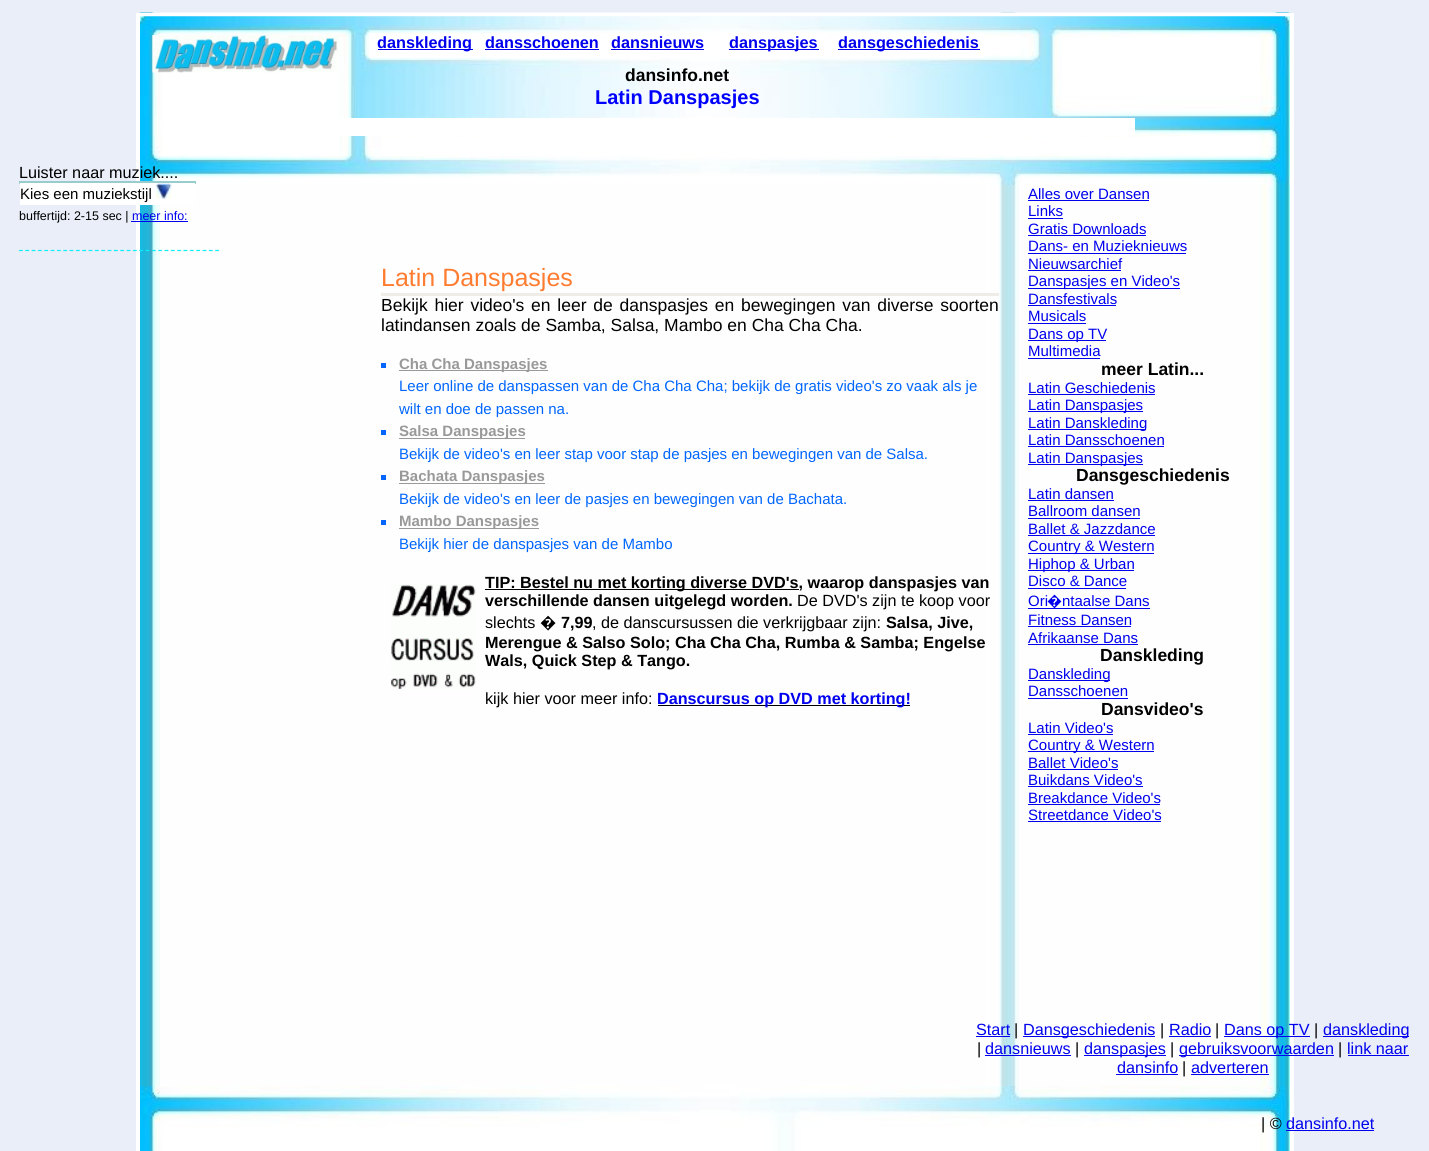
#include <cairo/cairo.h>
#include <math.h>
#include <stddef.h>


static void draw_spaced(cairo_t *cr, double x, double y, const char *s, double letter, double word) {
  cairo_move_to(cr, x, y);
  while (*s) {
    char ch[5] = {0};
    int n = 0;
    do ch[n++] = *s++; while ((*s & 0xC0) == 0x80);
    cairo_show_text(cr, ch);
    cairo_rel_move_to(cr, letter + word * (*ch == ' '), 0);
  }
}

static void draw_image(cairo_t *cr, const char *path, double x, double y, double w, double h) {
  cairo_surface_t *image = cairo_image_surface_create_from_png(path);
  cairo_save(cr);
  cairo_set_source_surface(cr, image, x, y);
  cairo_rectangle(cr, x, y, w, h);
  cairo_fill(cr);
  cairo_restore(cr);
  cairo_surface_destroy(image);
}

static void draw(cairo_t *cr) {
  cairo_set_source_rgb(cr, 233 / 255.0, 238 / 255.0, 248 / 255.0);
  cairo_paint(cr);
  draw_image(cr, "images/1.png", 140, 12, 1150, 1075);
  cairo_rectangle(cr, 138, 15, 1154, 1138);
  cairo_set_source_rgb(cr, 1, 1, 1);
  cairo_set_line_width(cr, 4);
  cairo_stroke(cr);
  draw_image(cr, "images/2.png", 140, 16, 1150, 169);
  draw_image(cr, "images/3.png", 152, 35, 187, 38);
  cairo_rectangle(cr, 369, 33, 112, 25);
  cairo_fill(cr);
  cairo_set_source_rgb(cr, 0, 0, 238 / 255.0);
  cairo_rectangle(cr, 378, 49, 95, 1);
  cairo_fill(cr);
  cairo_set_source_rgb(cr, 1, 1, 1);
  cairo_rectangle(cr, 485, 33, 113, 25);
  cairo_fill(cr);
  cairo_set_source_rgb(cr, 0, 0, 238 / 255.0);
  cairo_rectangle(cr, 485, 49, 114, 1);
  cairo_fill(cr);
  cairo_set_source_rgb(cr, 1, 1, 1);
  cairo_rectangle(cr, 601, 33, 48, 25);
  cairo_fill(cr);
  cairo_set_source_rgb(cr, 0, 0, 238 / 255.0);
  cairo_rectangle(cr, 611, 49, 93, 1);
  cairo_fill(cr);
  cairo_set_source_rgb(cr, 1, 1, 1);
  cairo_rectangle(cr, 720, 33, 110, 25);
  cairo_fill(cr);
  cairo_set_source_rgb(cr, 0, 0, 238 / 255.0);
  cairo_rectangle(cr, 729, 49, 90, 1);
  cairo_fill(cr);
  cairo_set_source_rgb(cr, 1, 1, 1);
  cairo_rectangle(cr, 834, 33, 150, 25);
  cairo_fill(cr);
  cairo_set_source_rgb(cr, 0, 0, 238 / 255.0);
  cairo_rectangle(cr, 838, 49, 142, 1);
  cairo_fill(cr);
  cairo_set_source_rgb(cr, 240 / 255.0, 236 / 255.0, 232 / 255.0);
  cairo_rectangle(cr, 381, 293, 618, 3);
  cairo_fill(cr);
  cairo_set_source_rgb(cr, 0, 102 / 255.0, 1);
  cairo_rectangle(cr, 381, 363, 5, 5);
  cairo_fill(cr);
  cairo_set_source_rgb(cr, 153 / 255.0, 153 / 255.0, 153 / 255.0);
  cairo_rectangle(cr, 399, 370, 149, 1);
  cairo_fill(cr);
  cairo_set_source_rgb(cr, 0, 102 / 255.0, 1);
  cairo_rectangle(cr, 381, 430, 5, 5);
  cairo_fill(cr);
  cairo_set_source_rgb(cr, 153 / 255.0, 153 / 255.0, 153 / 255.0);
  cairo_rectangle(cr, 399, 438, 126, 1);
  cairo_fill(cr);
  cairo_set_source_rgb(cr, 0, 102 / 255.0, 1);
  cairo_rectangle(cr, 381, 475, 5, 5);
  cairo_fill(cr);
  cairo_set_source_rgb(cr, 153 / 255.0, 153 / 255.0, 153 / 255.0);
  cairo_rectangle(cr, 399, 483, 146, 1);
  cairo_fill(cr);
  cairo_set_source_rgb(cr, 0, 102 / 255.0, 1);
  cairo_rectangle(cr, 381, 520, 5, 5);
  cairo_fill(cr);
  cairo_set_source_rgb(cr, 153 / 255.0, 153 / 255.0, 153 / 255.0);
  cairo_rectangle(cr, 399, 528, 140, 1);
  cairo_fill(cr);
  draw_image(cr, "images/4.png", 391, 584, 85, 106);
  cairo_set_source_rgb(cr, 0, 0, 0);
  cairo_rectangle(cr, 485, 589, 314, 1);
  cairo_fill(cr);
  cairo_rectangle(cr, 658, 705, 252, 1);
  cairo_fill(cr);
  cairo_set_source_rgb(cr, 0, 0, 238 / 255.0);
  cairo_rectangle(cr, 1028, 200, 121, 1);
  cairo_fill(cr);
  cairo_rectangle(cr, 1028, 218, 35, 1);
  cairo_fill(cr);
  cairo_rectangle(cr, 1028, 235, 118, 1);
  cairo_fill(cr);
  cairo_rectangle(cr, 1028, 253, 158, 1);
  cairo_fill(cr);
  cairo_rectangle(cr, 1028, 270, 93, 1);
  cairo_fill(cr);
  cairo_rectangle(cr, 1028, 288, 152, 1);
  cairo_fill(cr);
  cairo_rectangle(cr, 1028, 305, 88, 1);
  cairo_fill(cr);
  cairo_rectangle(cr, 1028, 323, 58, 1);
  cairo_fill(cr);
  cairo_rectangle(cr, 1028, 340, 78, 1);
  cairo_fill(cr);
  cairo_rectangle(cr, 1028, 358, 72, 1);
  cairo_fill(cr);
  cairo_rectangle(cr, 1028, 394, 127, 1);
  cairo_fill(cr);
  cairo_rectangle(cr, 1028, 411, 115, 1);
  cairo_fill(cr);
  cairo_rectangle(cr, 1028, 429, 118, 1);
  cairo_fill(cr);
  cairo_rectangle(cr, 1028, 446, 136, 1);
  cairo_fill(cr);
  cairo_rectangle(cr, 1028, 464, 115, 1);
  cairo_fill(cr);
  cairo_rectangle(cr, 1028, 500, 86, 1);
  cairo_fill(cr);
  cairo_rectangle(cr, 1028, 518, 112, 1);
  cairo_fill(cr);
  cairo_rectangle(cr, 1028, 535, 127, 1);
  cairo_fill(cr);
  cairo_rectangle(cr, 1028, 553, 126, 1);
  cairo_fill(cr);
  cairo_rectangle(cr, 1028, 570, 106, 1);
  cairo_fill(cr);
  cairo_rectangle(cr, 1028, 588, 98, 1);
  cairo_fill(cr);
  cairo_rectangle(cr, 1028, 608, 122, 1);
  cairo_fill(cr);
  cairo_rectangle(cr, 1028, 626, 103, 1);
  cairo_fill(cr);
  cairo_rectangle(cr, 1028, 644, 110, 1);
  cairo_fill(cr);
  cairo_rectangle(cr, 1028, 680, 82, 1);
  cairo_fill(cr);
  cairo_rectangle(cr, 1028, 698, 100, 1);
  cairo_fill(cr);
  cairo_rectangle(cr, 1028, 734, 85, 1);
  cairo_fill(cr);
  cairo_rectangle(cr, 1028, 751, 126, 1);
  cairo_fill(cr);
  cairo_rectangle(cr, 1028, 769, 90, 1);
  cairo_fill(cr);
  cairo_rectangle(cr, 1028, 786, 115, 1);
  cairo_fill(cr);
  cairo_rectangle(cr, 1028, 804, 132, 1);
  cairo_fill(cr);
  cairo_rectangle(cr, 1028, 821, 133, 1);
  cairo_fill(cr);
  draw_image(cr, "images/5.png", 140, 1086, 1150, 65);
  cairo_set_source_rgb(cr, 1, 1, 1);
  cairo_rectangle(cr, 340, 118, 795, 18);
  cairo_fill(cr);
  cairo_new_path(cr);
  cairo_move_to(cr, 19, 250.5);
  cairo_line_to(cr, 219, 250.5);
  cairo_set_source_rgb(cr, 9 / 255.0, 238 / 255.0, 248 / 255.0);
  cairo_set_line_width(cr, 1.2);
  cairo_set_dash(cr, (double[]){3.75, 2.58}, 2, 0);
  cairo_stroke(cr);
  cairo_set_source_rgb(cr, 153 / 255.0, 204 / 255.0, 204 / 255.0);
  cairo_rectangle(cr, 19, 181, 177, 3);
  cairo_fill(cr);
  cairo_set_source_rgb(cr, 1, 1, 1);
  cairo_rectangle(cr, 20, 183, 175, 22);
  cairo_fill(cr);
  draw_image(cr, "images/6.png", 156, 183, 16, 16);
  cairo_set_source_rgb(cr, 0, 0, 238 / 255.0);
  cairo_rectangle(cr, 131, 221, 57, 1);
  cairo_fill(cr);
  cairo_rectangle(cr, 976, 1036, 34, 1);
  cairo_fill(cr);
  cairo_rectangle(cr, 1023, 1036, 132, 1);
  cairo_fill(cr);
  cairo_rectangle(cr, 1169, 1036, 42, 1);
  cairo_fill(cr);
  cairo_rectangle(cr, 1224, 1036, 86, 1);
  cairo_fill(cr);
  cairo_rectangle(cr, 1323, 1036, 86, 1);
  cairo_fill(cr);
  cairo_rectangle(cr, 985, 1055, 86, 1);
  cairo_fill(cr);
  cairo_rectangle(cr, 1084, 1055, 82, 1);
  cairo_fill(cr);
  cairo_rectangle(cr, 1179, 1055, 155, 1);
  cairo_fill(cr);
  cairo_rectangle(cr, 1348, 1055, 61, 1);
  cairo_fill(cr);
  cairo_rectangle(cr, 1116, 1074, 62, 1);
  cairo_fill(cr);
  cairo_rectangle(cr, 1191, 1074, 78, 1);
  cairo_fill(cr);
  cairo_rectangle(cr, 1286, 1130, 88, 1);
  cairo_fill(cr);
  cairo_select_font_face(cr, "Liberation Sans", CAIRO_FONT_SLANT_NORMAL, CAIRO_FONT_WEIGHT_BOLD);
  cairo_set_font_size(cr, 16.25);
  cairo_move_to(cr, 377, 48);
  cairo_show_text(cr, "danskleding");
  cairo_move_to(cr, 485, 48);
  cairo_show_text(cr, "dansschoenen");
  cairo_move_to(cr, 611, 48);
  cairo_show_text(cr, "dansnieuws");
  cairo_move_to(cr, 729, 48);
  cairo_show_text(cr, "danspasjes");
  cairo_move_to(cr, 838, 48);
  cairo_show_text(cr, "dansgeschiedenis");
  cairo_set_font_size(cr, 17.5);
  cairo_set_source_rgb(cr, 0, 0, 0);
  cairo_move_to(cr, 625, 81);
  cairo_show_text(cr, "dansinfo.net");
  cairo_set_font_size(cr, 20);
  cairo_set_source_rgb(cr, 0, 0, 1);
  cairo_move_to(cr, 595, 104);
  cairo_show_text(cr, "Latin Danspasjes");
  cairo_select_font_face(cr, "Liberation Sans", CAIRO_FONT_SLANT_NORMAL, CAIRO_FONT_WEIGHT_NORMAL);
  cairo_set_font_size(cr, 25);
  cairo_set_source_rgb(cr, 1, 124 / 255.0, 48 / 255.0);
  cairo_move_to(cr, 381, 286);
  cairo_show_text(cr, "Latin Danspasjes");
  cairo_set_font_size(cr, 17.5);
  cairo_set_source_rgb(cr, 0, 0, 0);
  draw_spaced(cr, 381, 311, "Bekijk hier video's en leer de danspasjes en bewegingen van diverse soorten", 0, 1.9);
  cairo_move_to(cr, 381, 331);
  cairo_show_text(cr, "latindansen zoals de Samba, Salsa, Mambo en Cha Cha Cha.");
  cairo_select_font_face(cr, "Liberation Sans", CAIRO_FONT_SLANT_NORMAL, CAIRO_FONT_WEIGHT_BOLD);
  cairo_set_font_size(cr, 15);
  cairo_set_source_rgb(cr, 153 / 255.0, 153 / 255.0, 153 / 255.0);
  cairo_move_to(cr, 399, 369);
  cairo_show_text(cr, "Cha Cha Danspasjes");
  cairo_select_font_face(cr, "Liberation Sans", CAIRO_FONT_SLANT_NORMAL, CAIRO_FONT_WEIGHT_NORMAL);
  cairo_set_source_rgb(cr, 0, 102 / 255.0, 1);
  cairo_move_to(cr, 399, 391);
  cairo_show_text(cr, "Leer online de danspassen van de Cha Cha Cha; bekijk de gratis video's zo vaak als je");
  cairo_move_to(cr, 399, 414);
  cairo_show_text(cr, "wilt en doe de passen na.");
  cairo_select_font_face(cr, "Liberation Sans", CAIRO_FONT_SLANT_NORMAL, CAIRO_FONT_WEIGHT_BOLD);
  cairo_set_source_rgb(cr, 153 / 255.0, 153 / 255.0, 153 / 255.0);
  cairo_move_to(cr, 399, 436);
  cairo_show_text(cr, "Salsa Danspasjes");
  cairo_select_font_face(cr, "Liberation Sans", CAIRO_FONT_SLANT_NORMAL, CAIRO_FONT_WEIGHT_NORMAL);
  cairo_set_source_rgb(cr, 0, 102 / 255.0, 1);
  cairo_move_to(cr, 399, 459);
  cairo_show_text(cr, "Bekijk de video's en leer stap voor stap de pasjes en bewegingen van de Salsa.");
  cairo_select_font_face(cr, "Liberation Sans", CAIRO_FONT_SLANT_NORMAL, CAIRO_FONT_WEIGHT_BOLD);
  cairo_set_source_rgb(cr, 153 / 255.0, 153 / 255.0, 153 / 255.0);
  cairo_move_to(cr, 399, 481);
  cairo_show_text(cr, "Bachata Danspasjes");
  cairo_select_font_face(cr, "Liberation Sans", CAIRO_FONT_SLANT_NORMAL, CAIRO_FONT_WEIGHT_NORMAL);
  cairo_set_source_rgb(cr, 0, 102 / 255.0, 1);
  cairo_move_to(cr, 399, 504);
  cairo_show_text(cr, "Bekijk de video's en leer de pasjes en bewegingen van de Bachata.");
  cairo_select_font_face(cr, "Liberation Sans", CAIRO_FONT_SLANT_NORMAL, CAIRO_FONT_WEIGHT_BOLD);
  cairo_set_source_rgb(cr, 153 / 255.0, 153 / 255.0, 153 / 255.0);
  cairo_move_to(cr, 399, 526);
  cairo_show_text(cr, "Mambo Danspasjes");
  cairo_select_font_face(cr, "Liberation Sans", CAIRO_FONT_SLANT_NORMAL, CAIRO_FONT_WEIGHT_NORMAL);
  cairo_set_source_rgb(cr, 0, 102 / 255.0, 1);
  cairo_move_to(cr, 399, 549);
  cairo_show_text(cr, "Bekijk hier de danspasjes van de Mambo");
  cairo_select_font_face(cr, "Liberation Sans", CAIRO_FONT_SLANT_NORMAL, CAIRO_FONT_WEIGHT_BOLD);
  cairo_set_font_size(cr, 16.2);
  cairo_set_source_rgb(cr, 0, 0, 0);
  cairo_move_to(cr, 485, 588);
  cairo_show_text(cr, "TIP: Bestel nu met korting diverse DVD's, waarop danspasjes van");
  cairo_move_to(cr, 485, 606);
  cairo_show_text(cr, "verschillende dansen uitgelegd worden.");
  cairo_select_font_face(cr, "Liberation Sans", CAIRO_FONT_SLANT_NORMAL, CAIRO_FONT_WEIGHT_NORMAL);
  cairo_move_to(cr, 797, 606);
  cairo_show_text(cr, "De DVD's zijn te koop voor");
  cairo_move_to(cr, 485, 628);
  cairo_show_text(cr, "slechts");
  cairo_select_font_face(cr, "Noto Sans", CAIRO_FONT_SLANT_NORMAL, CAIRO_FONT_WEIGHT_BOLD);
  cairo_move_to(cr, 540, 628);
  cairo_show_text(cr, "�");
  cairo_select_font_face(cr, "Liberation Sans", CAIRO_FONT_SLANT_NORMAL, CAIRO_FONT_WEIGHT_BOLD);
  cairo_move_to(cr, 561, 628);
  cairo_show_text(cr, "7,99");
  cairo_select_font_face(cr, "Liberation Sans", CAIRO_FONT_SLANT_NORMAL, CAIRO_FONT_WEIGHT_NORMAL);
  cairo_move_to(cr, 592, 628);
  cairo_show_text(cr, ", de danscursussen die verkrijgbaar zijn:");
  cairo_select_font_face(cr, "Liberation Sans", CAIRO_FONT_SLANT_NORMAL, CAIRO_FONT_WEIGHT_BOLD);
  cairo_move_to(cr, 886, 628);
  cairo_show_text(cr, "Salsa, Jive,");
  cairo_move_to(cr, 485, 648);
  cairo_show_text(cr, "Merengue & Salso Solo; Cha Cha Cha, Rumba & Samba; Engelse");
  cairo_move_to(cr, 485, 666);
  cairo_show_text(cr, "Wals, Quick Step & Tango.");
  cairo_select_font_face(cr, "Liberation Sans", CAIRO_FONT_SLANT_NORMAL, CAIRO_FONT_WEIGHT_NORMAL);
  cairo_move_to(cr, 485, 704);
  cairo_show_text(cr, "kijk hier voor meer info:");
  cairo_select_font_face(cr, "Liberation Sans", CAIRO_FONT_SLANT_NORMAL, CAIRO_FONT_WEIGHT_BOLD);
  cairo_set_source_rgb(cr, 0, 0, 238 / 255.0);
  cairo_move_to(cr, 657, 704);
  cairo_show_text(cr, "Danscursus op DVD met korting!");
  cairo_select_font_face(cr, "Liberation Sans", CAIRO_FONT_SLANT_NORMAL, CAIRO_FONT_WEIGHT_NORMAL);
  cairo_set_font_size(cr, 15);
  cairo_move_to(cr, 1028, 199);
  cairo_show_text(cr, "Alles over Dansen");
  cairo_move_to(cr, 1028, 216);
  cairo_show_text(cr, "Links");
  cairo_move_to(cr, 1028, 234);
  cairo_show_text(cr, "Gratis Downloads");
  cairo_move_to(cr, 1028, 251);
  cairo_show_text(cr, "Dans- en Muzieknieuws");
  cairo_move_to(cr, 1028, 269);
  cairo_show_text(cr, "Nieuwsarchief");
  cairo_move_to(cr, 1028, 286);
  cairo_show_text(cr, "Danspasjes en Video's");
  cairo_move_to(cr, 1028, 304);
  cairo_show_text(cr, "Dansfestivals");
  cairo_move_to(cr, 1028, 321);
  cairo_show_text(cr, "Musicals");
  cairo_move_to(cr, 1028, 339);
  cairo_show_text(cr, "Dans op TV");
  cairo_move_to(cr, 1028, 356);
  cairo_show_text(cr, "Multimedia");
  cairo_select_font_face(cr, "Liberation Sans", CAIRO_FONT_SLANT_NORMAL, CAIRO_FONT_WEIGHT_BOLD);
  cairo_set_font_size(cr, 17.5);
  cairo_set_source_rgb(cr, 0, 0, 0);
  cairo_move_to(cr, 1101, 375);
  cairo_show_text(cr, "meer Latin...");
  cairo_select_font_face(cr, "Liberation Sans", CAIRO_FONT_SLANT_NORMAL, CAIRO_FONT_WEIGHT_NORMAL);
  cairo_set_font_size(cr, 15);
  cairo_set_source_rgb(cr, 0, 0, 238 / 255.0);
  cairo_move_to(cr, 1028, 393);
  cairo_show_text(cr, "Latin Geschiedenis");
  cairo_move_to(cr, 1028, 410);
  cairo_show_text(cr, "Latin Danspasjes");
  cairo_move_to(cr, 1028, 428);
  cairo_show_text(cr, "Latin Danskleding");
  cairo_move_to(cr, 1028, 445);
  cairo_show_text(cr, "Latin Dansschoenen");
  cairo_move_to(cr, 1028, 463);
  cairo_show_text(cr, "Latin Danspasjes");
  cairo_select_font_face(cr, "Liberation Sans", CAIRO_FONT_SLANT_NORMAL, CAIRO_FONT_WEIGHT_BOLD);
  cairo_set_font_size(cr, 17.5);
  cairo_set_source_rgb(cr, 0, 0, 0);
  cairo_move_to(cr, 1076, 481);
  cairo_show_text(cr, "Dansgeschiedenis");
  cairo_select_font_face(cr, "Liberation Sans", CAIRO_FONT_SLANT_NORMAL, CAIRO_FONT_WEIGHT_NORMAL);
  cairo_set_font_size(cr, 15);
  cairo_set_source_rgb(cr, 0, 0, 238 / 255.0);
  cairo_move_to(cr, 1028, 499);
  cairo_show_text(cr, "Latin dansen");
  cairo_move_to(cr, 1028, 516);
  cairo_show_text(cr, "Ballroom dansen");
  cairo_move_to(cr, 1028, 534);
  cairo_show_text(cr, "Ballet & Jazzdance");
  cairo_move_to(cr, 1028, 551);
  cairo_show_text(cr, "Country & Western");
  cairo_move_to(cr, 1028, 569);
  cairo_show_text(cr, "Hiphop & Urban");
  cairo_move_to(cr, 1028, 586);
  cairo_show_text(cr, "Disco & Dance");
  cairo_move_to(cr, 1028, 606);
  cairo_show_text(cr, "Ori");
  cairo_select_font_face(cr, "Noto Sans", CAIRO_FONT_SLANT_NORMAL, CAIRO_FONT_WEIGHT_NORMAL);
  cairo_move_to(cr, 1047, 606);
  cairo_show_text(cr, "�");
  cairo_select_font_face(cr, "Liberation Sans", CAIRO_FONT_SLANT_NORMAL, CAIRO_FONT_WEIGHT_NORMAL);
  cairo_move_to(cr, 1062, 606);
  cairo_show_text(cr, "ntaalse Dans");
  cairo_move_to(cr, 1028, 625);
  cairo_show_text(cr, "Fitness Dansen");
  cairo_move_to(cr, 1028, 643);
  cairo_show_text(cr, "Afrikaanse Dans");
  cairo_select_font_face(cr, "Liberation Sans", CAIRO_FONT_SLANT_NORMAL, CAIRO_FONT_WEIGHT_BOLD);
  cairo_set_font_size(cr, 17.5);
  cairo_set_source_rgb(cr, 0, 0, 0);
  cairo_move_to(cr, 1100, 661);
  cairo_show_text(cr, "Danskleding");
  cairo_select_font_face(cr, "Liberation Sans", CAIRO_FONT_SLANT_NORMAL, CAIRO_FONT_WEIGHT_NORMAL);
  cairo_set_font_size(cr, 15);
  cairo_set_source_rgb(cr, 0, 0, 238 / 255.0);
  cairo_move_to(cr, 1028, 679);
  cairo_show_text(cr, "Danskleding");
  cairo_move_to(cr, 1028, 696);
  cairo_show_text(cr, "Dansschoenen");
  cairo_select_font_face(cr, "Liberation Sans", CAIRO_FONT_SLANT_NORMAL, CAIRO_FONT_WEIGHT_BOLD);
  cairo_set_font_size(cr, 17.5);
  cairo_set_source_rgb(cr, 0, 0, 0);
  cairo_move_to(cr, 1101, 715);
  cairo_show_text(cr, "Dansvideo's");
  cairo_select_font_face(cr, "Liberation Sans", CAIRO_FONT_SLANT_NORMAL, CAIRO_FONT_WEIGHT_NORMAL);
  cairo_set_font_size(cr, 15);
  cairo_set_source_rgb(cr, 0, 0, 238 / 255.0);
  cairo_move_to(cr, 1028, 733);
  cairo_show_text(cr, "Latin Video's");
  cairo_move_to(cr, 1028, 750);
  cairo_show_text(cr, "Country & Western");
  cairo_move_to(cr, 1028, 768);
  cairo_show_text(cr, "Ballet Video's");
  cairo_move_to(cr, 1028, 785);
  cairo_show_text(cr, "Buikdans Video's");
  cairo_move_to(cr, 1028, 803);
  cairo_show_text(cr, "Breakdance Video's");
  cairo_move_to(cr, 1028, 820);
  cairo_show_text(cr, "Streetdance Video's");
  cairo_set_font_size(cr, 16.2);
  cairo_set_source_rgb(cr, 0, 0, 0);
  cairo_move_to(cr, 19, 178);
  cairo_show_text(cr, "Luister naar muziek....");
  cairo_set_font_size(cr, 15);
  cairo_move_to(cr, 20, 199);
  cairo_show_text(cr, "Kies een muziekstijl");
  cairo_set_font_size(cr, 12.5);
  cairo_move_to(cr, 19, 220);
  cairo_show_text(cr, "buffertijd: 2-15 sec |");
  cairo_set_source_rgb(cr, 0, 0, 238 / 255.0);
  cairo_move_to(cr, 132, 220);
  cairo_show_text(cr, "meer info:");
  cairo_set_font_size(cr, 16.2);
  cairo_move_to(cr, 976, 1035);
  cairo_show_text(cr, "Start");
  cairo_set_source_rgb(cr, 0, 0, 0);
  cairo_move_to(cr, 1014, 1035);
  cairo_show_text(cr, "|");
  cairo_set_source_rgb(cr, 0, 0, 238 / 255.0);
  cairo_move_to(cr, 1023, 1035);
  cairo_show_text(cr, "Dansgeschiedenis");
  cairo_set_source_rgb(cr, 0, 0, 0);
  cairo_move_to(cr, 1160, 1035);
  cairo_show_text(cr, "|");
  cairo_set_source_rgb(cr, 0, 0, 238 / 255.0);
  cairo_move_to(cr, 1169, 1035);
  cairo_show_text(cr, "Radio");
  cairo_set_source_rgb(cr, 0, 0, 0);
  cairo_move_to(cr, 1215, 1035);
  cairo_show_text(cr, "|");
  cairo_set_source_rgb(cr, 0, 0, 238 / 255.0);
  cairo_move_to(cr, 1224, 1035);
  cairo_show_text(cr, "Dans op TV");
  cairo_set_source_rgb(cr, 0, 0, 0);
  cairo_move_to(cr, 1314, 1035);
  cairo_show_text(cr, "|");
  cairo_set_source_rgb(cr, 0, 0, 238 / 255.0);
  cairo_move_to(cr, 1323, 1035);
  cairo_show_text(cr, "danskleding");
  cairo_set_source_rgb(cr, 0, 0, 0);
  cairo_move_to(cr, 977, 1054);
  cairo_show_text(cr, "|");
  cairo_set_source_rgb(cr, 0, 0, 238 / 255.0);
  cairo_move_to(cr, 985, 1054);
  cairo_show_text(cr, "dansnieuws");
  cairo_set_source_rgb(cr, 0, 0, 0);
  cairo_move_to(cr, 1075, 1054);
  cairo_show_text(cr, "|");
  cairo_set_source_rgb(cr, 0, 0, 238 / 255.0);
  cairo_move_to(cr, 1084, 1054);
  cairo_show_text(cr, "danspasjes");
  cairo_set_source_rgb(cr, 0, 0, 0);
  cairo_move_to(cr, 1170, 1054);
  cairo_show_text(cr, "|");
  cairo_set_source_rgb(cr, 0, 0, 238 / 255.0);
  cairo_move_to(cr, 1179, 1054);
  cairo_show_text(cr, "gebruiksvoorwaarden");
  cairo_set_source_rgb(cr, 0, 0, 0);
  cairo_move_to(cr, 1338, 1054);
  cairo_show_text(cr, "|");
  cairo_set_source_rgb(cr, 0, 0, 238 / 255.0);
  cairo_move_to(cr, 1347, 1054);
  cairo_show_text(cr, "link naar");
  cairo_move_to(cr, 1117, 1073);
  cairo_show_text(cr, "dansinfo");
  cairo_set_source_rgb(cr, 0, 0, 0);
  cairo_move_to(cr, 1182, 1073);
  cairo_show_text(cr, "|");
  cairo_set_source_rgb(cr, 0, 0, 238 / 255.0);
  cairo_move_to(cr, 1191, 1073);
  cairo_show_text(cr, "adverteren");
  cairo_set_source_rgb(cr, 0, 0, 0);
  cairo_move_to(cr, 1261, 1129);
  cairo_show_text(cr, "| ©");
  cairo_set_source_rgb(cr, 0, 0, 238 / 255.0);
  cairo_move_to(cr, 1286, 1129);
  cairo_show_text(cr, "dansinfo.net");
}

int main(void) {
  cairo_surface_t *surface = cairo_image_surface_create(CAIRO_FORMAT_RGB24, 1429, 1151);
  cairo_t *cr = cairo_create(surface);
  cairo_font_options_t *options = cairo_font_options_create();
  cairo_font_options_set_hint_metrics(options, CAIRO_HINT_METRICS_OFF);
  cairo_font_options_set_hint_style(options, CAIRO_HINT_STYLE_NONE);
  cairo_set_font_options(cr, options);
  cairo_set_miter_limit(cr, 4);
  draw(cr);
  cairo_surface_write_to_png(surface, "out.png");
  cairo_font_options_destroy(options);
  cairo_destroy(cr);
  cairo_surface_destroy(surface);
  return 0;
}
